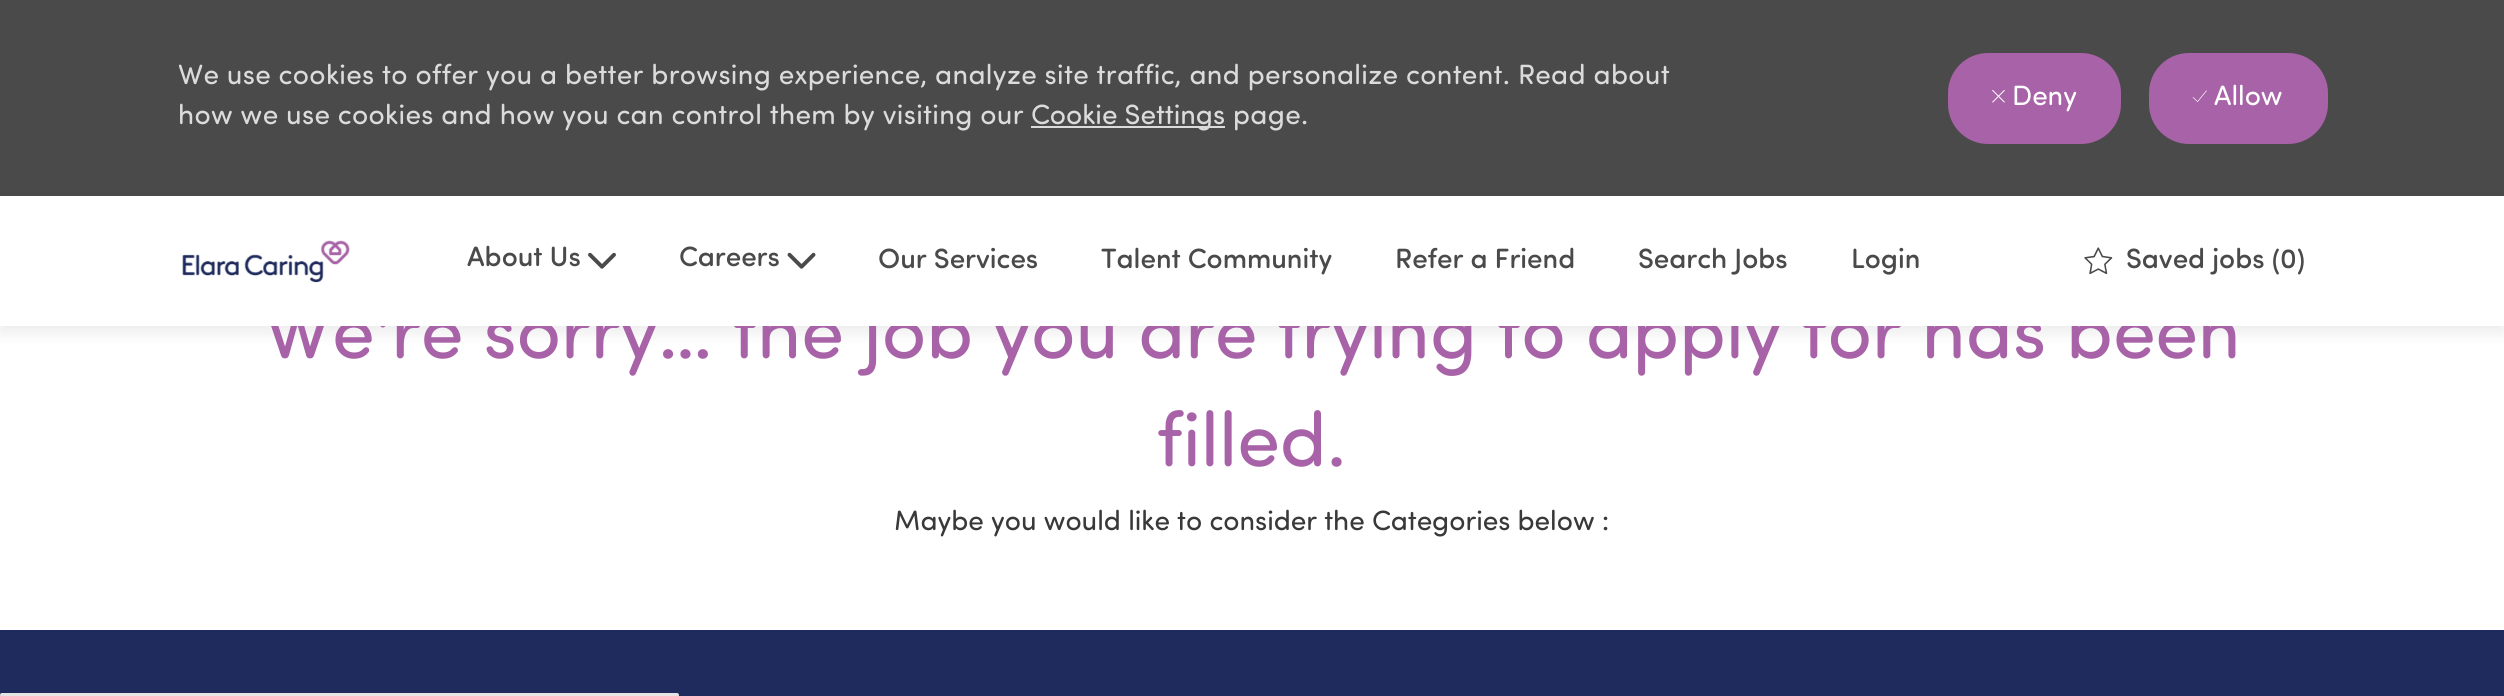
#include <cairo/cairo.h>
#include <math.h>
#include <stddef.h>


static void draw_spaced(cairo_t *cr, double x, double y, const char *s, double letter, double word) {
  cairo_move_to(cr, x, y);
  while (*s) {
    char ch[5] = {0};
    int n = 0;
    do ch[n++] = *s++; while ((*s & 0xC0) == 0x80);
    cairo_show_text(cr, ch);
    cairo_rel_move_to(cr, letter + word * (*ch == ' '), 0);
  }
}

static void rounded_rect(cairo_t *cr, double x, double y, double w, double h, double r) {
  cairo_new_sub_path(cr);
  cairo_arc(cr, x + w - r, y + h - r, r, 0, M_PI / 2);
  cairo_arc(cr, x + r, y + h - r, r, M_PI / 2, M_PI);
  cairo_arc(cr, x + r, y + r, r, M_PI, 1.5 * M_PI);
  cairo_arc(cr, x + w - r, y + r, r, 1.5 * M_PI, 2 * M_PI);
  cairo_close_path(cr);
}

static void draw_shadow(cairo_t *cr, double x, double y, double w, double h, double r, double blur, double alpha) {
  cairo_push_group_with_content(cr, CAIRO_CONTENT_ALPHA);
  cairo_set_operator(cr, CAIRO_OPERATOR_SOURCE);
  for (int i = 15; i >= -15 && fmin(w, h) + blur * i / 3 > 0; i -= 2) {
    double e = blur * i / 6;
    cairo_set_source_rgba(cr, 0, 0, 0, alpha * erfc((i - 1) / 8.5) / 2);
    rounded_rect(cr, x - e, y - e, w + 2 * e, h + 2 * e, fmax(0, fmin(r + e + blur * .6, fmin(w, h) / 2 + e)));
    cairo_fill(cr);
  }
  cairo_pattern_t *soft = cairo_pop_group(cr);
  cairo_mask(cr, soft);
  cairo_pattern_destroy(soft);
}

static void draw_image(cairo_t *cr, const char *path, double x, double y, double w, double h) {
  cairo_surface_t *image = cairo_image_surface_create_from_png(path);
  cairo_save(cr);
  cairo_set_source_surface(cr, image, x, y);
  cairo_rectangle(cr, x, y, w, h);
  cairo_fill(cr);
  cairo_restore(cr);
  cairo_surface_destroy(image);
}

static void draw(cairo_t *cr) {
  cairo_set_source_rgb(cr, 1, 1, 1);
  cairo_paint(cr);
  cairo_set_source_rgb(cr, 74 / 255.0, 74 / 255.0, 74 / 255.0);
  cairo_rectangle(cr, 0, 0, 2504, 196);
  cairo_fill(cr);
  cairo_set_source_rgb(cr, 219 / 255.0, 219 / 255.0, 219 / 255.0);
  cairo_rectangle(cr, 1031, 126, 194, 2);
  cairo_fill(cr);
  cairo_set_source_rgb(cr, 168 / 255.0, 98 / 255.0, 167 / 255.0);
  rounded_rect(cr, 1949, 54, 171, 89, 39);
  cairo_fill_preserve(cr);
  cairo_stroke(cr);
  draw_image(cr, "images/1.png", 1992, 90, 13, 13);
  rounded_rect(cr, 2150, 54, 177, 89, 39);
  cairo_fill_preserve(cr);
  cairo_stroke(cr);
  draw_image(cr, "images/2.png", 2192, 90, 15, 12);
  cairo_set_source_rgb(cr, 34 / 255.0, 36 / 255.0, 43 / 255.0);
  draw_shadow(cr, -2, 201, 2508, 133, 0, 7, 0.08);
  cairo_set_source_rgb(cr, 31 / 255.0, 43 / 255.0, 93 / 255.0);
  cairo_rectangle(cr, 0, 630, 2504, 66);
  cairo_fill(cr);
  cairo_set_source_rgb(cr, 228 / 255.0, 228 / 255.0, 228 / 255.0);
  rounded_rect(cr, 0, 693, 679, 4, 2);
  cairo_fill(cr);
  cairo_select_font_face(cr, "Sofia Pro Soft", CAIRO_FONT_SLANT_NORMAL, CAIRO_FONT_WEIGHT_NORMAL);
  cairo_set_font_size(cr, 28);
  cairo_set_source_rgb(cr, 219 / 255.0, 219 / 255.0, 219 / 255.0);
  draw_spaced(cr, 178, 84, "We use cookies to offer you a better browsing experience, analyze site traffic, and personalize content. Read about", 0.35, 0);
  draw_spaced(cr, 178, 124, "how we use cookies and how you can control them by visiting our", 0.35, 0);
  cairo_move_to(cr, 1031, 124);
  cairo_show_text(cr, "Cookie Settings");
  draw_spaced(cr, 1233, 124, "page.", 0.35, 0);
  cairo_set_source_rgb(cr, 1, 1, 1);
  cairo_move_to(cr, 2012, 105);
  cairo_show_text(cr, "Deny");
  cairo_move_to(cr, 2214, 105);
  cairo_show_text(cr, "Allow");
  cairo_set_font_size(cr, 77);
  cairo_set_source_rgb(cr, 168 / 255.0, 98 / 255.0, 167 / 255.0);
  cairo_move_to(cr, 263, 358);
  cairo_show_text(cr, "We're sorry… the job you are trying to apply for has been");
  cairo_set_source_rgb(cr, 1, 1, 1);
  cairo_rectangle(cr, 0, 196, 2504, 130);
  cairo_fill(cr);
  cairo_select_font_face(cr, "Sofia Pro Soft Medium", CAIRO_FONT_SLANT_NORMAL, CAIRO_FONT_WEIGHT_NORMAL);
  cairo_set_font_size(cr, 28);
  cairo_set_source_rgb(cr, 74 / 255.0, 74 / 255.0, 74 / 255.0);
  cairo_move_to(cr, 2126, 268);
  cairo_show_text(cr, "Saved jobs (0)");
  draw_image(cr, "images/6.png", 2084, 247, 29, 28);
  cairo_move_to(cr, 1851, 268);
  cairo_show_text(cr, "Login");
  cairo_move_to(cr, 1638, 268);
  cairo_show_text(cr, "Search Jobs");
  cairo_move_to(cr, 1395, 268);
  cairo_show_text(cr, "Refer a Friend");
  cairo_move_to(cr, 1101, 268);
  cairo_show_text(cr, "Talent Community");
  cairo_move_to(cr, 878, 268);
  cairo_show_text(cr, "Our Services");
  draw_image(cr, "images/5.png", 787, 252, 29, 17);
  cairo_move_to(cr, 679, 266);
  cairo_show_text(cr, "Careers");
  draw_image(cr, "images/4.png", 588, 252, 28, 17);
  cairo_move_to(cr, 467, 266);
  cairo_show_text(cr, "About Us");
  draw_image(cr, "images/3.png", 182, 240, 168, 43);
  cairo_select_font_face(cr, "Sofia Pro Soft", CAIRO_FONT_SLANT_NORMAL, CAIRO_FONT_WEIGHT_NORMAL);
  cairo_set_font_size(cr, 77);
  cairo_set_source_rgb(cr, 168 / 255.0, 98 / 255.0, 167 / 255.0);
  cairo_move_to(cr, 1157, 466);
  cairo_show_text(cr, "filled.");
  cairo_set_font_size(cr, 28);
  cairo_set_source_rgb(cr, 57 / 255.0, 57 / 255.0, 57 / 255.0);
  cairo_move_to(cr, 894, 530);
  cairo_show_text(cr, "Maybe you would like to consider the Categories below :");
}

int main(void) {
  cairo_surface_t *surface = cairo_image_surface_create(CAIRO_FORMAT_RGB24, 2504, 696);
  cairo_t *cr = cairo_create(surface);
  cairo_font_options_t *options = cairo_font_options_create();
  cairo_font_options_set_hint_metrics(options, CAIRO_HINT_METRICS_OFF);
  cairo_font_options_set_hint_style(options, CAIRO_HINT_STYLE_NONE);
  cairo_set_font_options(cr, options);
  cairo_set_miter_limit(cr, 4);
  draw(cr);
  cairo_surface_write_to_png(surface, "out.png");
  cairo_font_options_destroy(options);
  cairo_destroy(cr);
  cairo_surface_destroy(surface);
  return 0;
}
